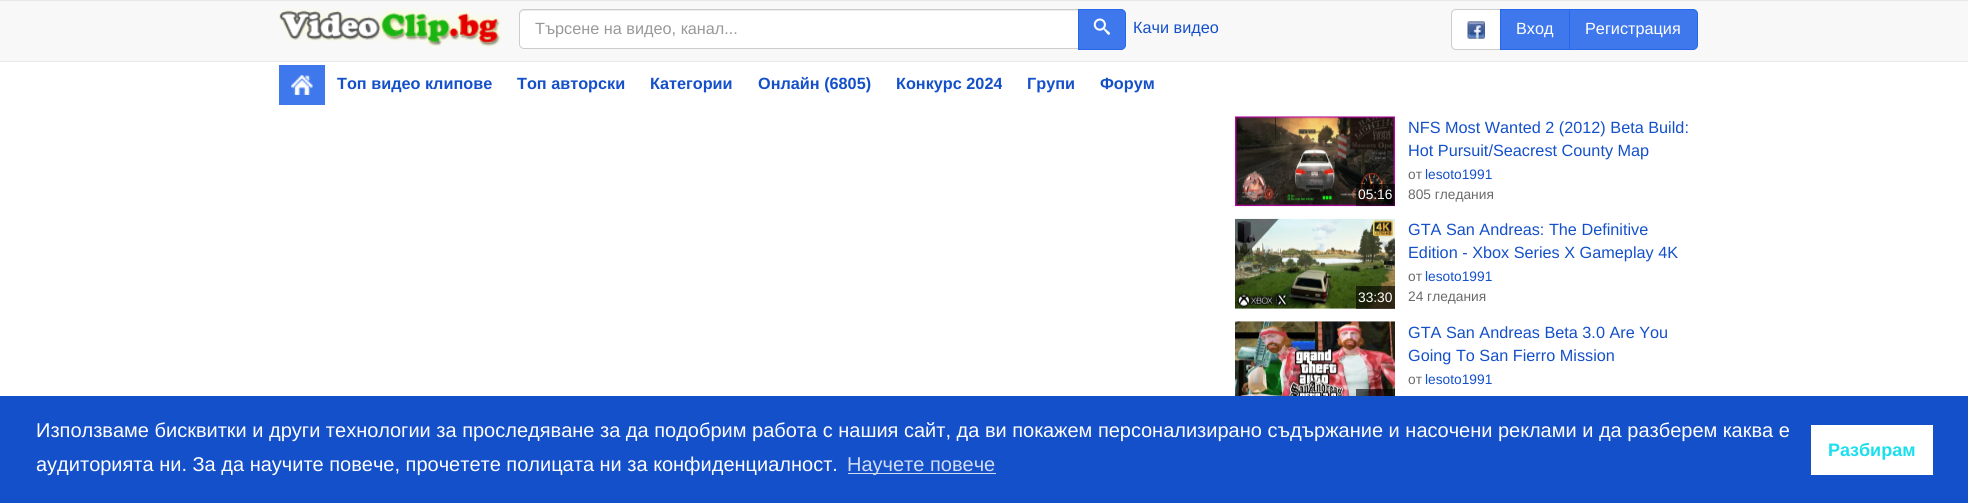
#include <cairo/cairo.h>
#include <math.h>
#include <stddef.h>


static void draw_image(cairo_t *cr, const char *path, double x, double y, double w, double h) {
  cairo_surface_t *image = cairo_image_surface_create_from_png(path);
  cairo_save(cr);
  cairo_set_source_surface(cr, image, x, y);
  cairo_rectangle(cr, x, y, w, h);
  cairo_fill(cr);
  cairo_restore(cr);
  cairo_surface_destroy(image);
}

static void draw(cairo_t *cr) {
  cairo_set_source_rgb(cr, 1, 1, 1);
  cairo_paint(cr);
  cairo_set_source_rgb(cr, 248 / 255.0, 248 / 255.0, 248 / 255.0);
  cairo_rectangle(cr, 0, 1, 1968, 60);
  cairo_fill(cr);
  cairo_set_source_rgb(cr, 231 / 255.0, 231 / 255.0, 231 / 255.0);
  cairo_rectangle(cr, 0, 0, 1968, 1);
  cairo_fill(cr);
  cairo_rectangle(cr, 0, 61, 1968, 1);
  cairo_fill(cr);
  draw_image(cr, "images/1.png", 279, 8, 223, 40);
  cairo_set_source_rgb(cr, 1, 1, 1);
  cairo_new_path(cr);
  cairo_move_to(cr, 524, 9);
  cairo_line_to(cr, 1079, 9);
  cairo_line_to(cr, 1079, 49);
  cairo_line_to(cr, 524, 49);
  cairo_curve_to(cr, 521, 49, 519, 47, 519, 44);
  cairo_line_to(cr, 519, 14);
  cairo_curve_to(cr, 519, 11, 521, 9, 524, 9);
  cairo_close_path(cr);
  cairo_fill(cr);
  cairo_set_source_rgb(cr, 236 / 255.0, 236 / 255.0, 236 / 255.0);
  cairo_new_path(cr);
  cairo_move_to(cr, 524, 11);
  cairo_line_to(cr, 1078, 11);
  cairo_line_to(cr, 1078, 10);
  cairo_line_to(cr, 524, 10);
  cairo_curve_to(cr, 521, 10, 520, 12, 520, 15);
  cairo_curve_to(cr, 520, 13, 522, 11, 524, 11);
  cairo_close_path(cr);
  cairo_fill(cr);
  cairo_new_path(cr);
  cairo_move_to(cr, 524, 9.5);
  cairo_line_to(cr, 1078.5, 9.5);
  cairo_line_to(cr, 1078.5, 48.5);
  cairo_line_to(cr, 524, 48.5);
  cairo_curve_to(cr, 521.5, 48.5, 519.5, 46.5, 519.5, 44);
  cairo_line_to(cr, 519.5, 14);
  cairo_curve_to(cr, 519.5, 11.5, 521.5, 9.5, 524, 9.5);
  cairo_close_path(cr);
  cairo_set_source_rgb(cr, 204 / 255.0, 204 / 255.0, 204 / 255.0);
  cairo_set_line_width(cr, 1);
  cairo_stroke(cr);
  cairo_set_source_rgb(cr, 63 / 255.0, 120 / 255.0, 236 / 255.0);
  cairo_new_path(cr);
  cairo_move_to(cr, 1078.5, 9.5);
  cairo_line_to(cr, 1121, 9.5);
  cairo_curve_to(cr, 1123.5, 9.5, 1125.5, 11.5, 1125.5, 14);
  cairo_line_to(cr, 1125.5, 45);
  cairo_curve_to(cr, 1125.5, 47.5, 1123.5, 49.5, 1121, 49.5);
  cairo_line_to(cr, 1078.5, 49.5);
  cairo_close_path(cr);
  cairo_fill_preserve(cr);
  cairo_set_source_rgb(cr, 39 / 255.0, 103 / 255.0, 234 / 255.0);
  cairo_stroke(cr);
  draw_image(cr, "images/2.png", 1093, 18, 17, 17);
  cairo_set_source_rgb(cr, 1, 1, 1);
  cairo_new_path(cr);
  cairo_move_to(cr, 1456, 9.5);
  cairo_line_to(cr, 1500.5, 9.5);
  cairo_line_to(cr, 1500.5, 49.5);
  cairo_line_to(cr, 1456, 49.5);
  cairo_curve_to(cr, 1453.5, 49.5, 1451.5, 47.5, 1451.5, 45);
  cairo_line_to(cr, 1451.5, 14);
  cairo_curve_to(cr, 1451.5, 11.5, 1453.5, 9.5, 1456, 9.5);
  cairo_close_path(cr);
  cairo_fill_preserve(cr);
  cairo_set_source_rgb(cr, 204 / 255.0, 204 / 255.0, 204 / 255.0);
  cairo_stroke(cr);
  draw_image(cr, "images/3.png", 1467, 21, 18, 18);
  cairo_set_source_rgb(cr, 63 / 255.0, 120 / 255.0, 236 / 255.0);
  cairo_rectangle(cr, 1500.5, 9.5, 69, 40);
  cairo_fill_preserve(cr);
  cairo_set_source_rgb(cr, 39 / 255.0, 103 / 255.0, 234 / 255.0);
  cairo_stroke(cr);
  cairo_set_source_rgb(cr, 63 / 255.0, 120 / 255.0, 236 / 255.0);
  cairo_new_path(cr);
  cairo_move_to(cr, 1569.5, 9.5);
  cairo_line_to(cr, 1693, 9.5);
  cairo_curve_to(cr, 1695.5, 9.5, 1697.5, 11.5, 1697.5, 14);
  cairo_line_to(cr, 1697.5, 45);
  cairo_curve_to(cr, 1697.5, 47.5, 1695.5, 49.5, 1693, 49.5);
  cairo_line_to(cr, 1569.5, 49.5);
  cairo_close_path(cr);
  cairo_fill_preserve(cr);
  cairo_set_source_rgb(cr, 39 / 255.0, 103 / 255.0, 234 / 255.0);
  cairo_stroke(cr);
  cairo_set_source_rgb(cr, 63 / 255.0, 120 / 255.0, 236 / 255.0);
  cairo_rectangle(cr, 279, 65, 46, 40);
  cairo_fill(cr);
  draw_image(cr, "images/4.png", 291, 75, 22, 20);
  draw_image(cr, "images/5.png", 1235, 116, 160, 91);
  cairo_set_source_rgba(cr, 0, 0, 0, 0.6);
  cairo_rectangle(cr, 1356, 184, 39, 22);
  cairo_fill(cr);
  draw_image(cr, "images/6.png", 1235, 218, 160, 91);
  cairo_rectangle(cr, 1356, 286, 39, 23);
  cairo_fill(cr);
  draw_image(cr, "images/7.png", 1235, 321, 160, 75);
  cairo_rectangle(cr, 1356, 389, 39, 7);
  cairo_fill(cr);
  cairo_set_source_rgb(cr, 20 / 255.0, 80 / 255.0, 202 / 255.0);
  cairo_rectangle(cr, 0, 396, 1968, 107);
  cairo_fill(cr);
  cairo_set_source_rgb(cr, 208 / 255.0, 220 / 255.0, 244 / 255.0);
  cairo_rectangle(cr, 848, 473, 148, 1);
  cairo_fill(cr);
  cairo_set_source_rgb(cr, 1, 1, 1);
  cairo_rectangle(cr, 1811, 425, 122, 50);
  cairo_fill(cr);
  cairo_select_font_face(cr, "Liberation Sans", CAIRO_FONT_SLANT_NORMAL, CAIRO_FONT_WEIGHT_NORMAL);
  cairo_set_font_size(cr, 16.25);
  cairo_set_source_rgb(cr, 153 / 255.0, 153 / 255.0, 153 / 255.0);
  cairo_move_to(cr, 535, 34);
  cairo_show_text(cr, "Търсене на видео, канал...");
  cairo_set_source_rgb(cr, 20 / 255.0, 80 / 255.0, 202 / 255.0);
  cairo_move_to(cr, 1133, 33);
  cairo_show_text(cr, "Качи видео");
  cairo_set_source_rgb(cr, 1, 1, 1);
  cairo_move_to(cr, 1516, 34);
  cairo_show_text(cr, "Вход");
  cairo_move_to(cr, 1585, 34);
  cairo_show_text(cr, "Регистрация");
  cairo_select_font_face(cr, "Liberation Sans", CAIRO_FONT_SLANT_NORMAL, CAIRO_FONT_WEIGHT_BOLD);
  cairo_set_source_rgb(cr, 20 / 255.0, 80 / 255.0, 202 / 255.0);
  cairo_move_to(cr, 337, 89);
  cairo_show_text(cr, "Топ видео клипове");
  cairo_move_to(cr, 517, 89);
  cairo_show_text(cr, "Топ авторски");
  cairo_move_to(cr, 650, 89);
  cairo_show_text(cr, "Категории");
  cairo_move_to(cr, 758, 89);
  cairo_show_text(cr, "Онлайн (6805)");
  cairo_move_to(cr, 896, 89);
  cairo_show_text(cr, "Конкурс 2024");
  cairo_move_to(cr, 1027, 89);
  cairo_show_text(cr, "Групи");
  cairo_move_to(cr, 1100, 89);
  cairo_show_text(cr, "Форум");
  cairo_select_font_face(cr, "Liberation Sans", CAIRO_FONT_SLANT_NORMAL, CAIRO_FONT_WEIGHT_NORMAL);
  cairo_set_font_size(cr, 13.75);
  cairo_set_source_rgb(cr, 1, 1, 1);
  cairo_move_to(cr, 1358, 199);
  cairo_show_text(cr, "05:16");
  cairo_set_font_size(cr, 16.25);
  cairo_set_source_rgb(cr, 20 / 255.0, 80 / 255.0, 202 / 255.0);
  cairo_move_to(cr, 1408, 133);
  cairo_show_text(cr, "NFS Most Wanted 2 (2012) Beta Build:");
  cairo_move_to(cr, 1408, 156);
  cairo_show_text(cr, "Hot Pursuit/Seacrest County Map");
  cairo_set_font_size(cr, 13.75);
  cairo_set_source_rgb(cr, 106 / 255.0, 106 / 255.0, 106 / 255.0);
  cairo_move_to(cr, 1408, 179);
  cairo_show_text(cr, "от");
  cairo_set_source_rgb(cr, 20 / 255.0, 80 / 255.0, 202 / 255.0);
  cairo_move_to(cr, 1425, 179);
  cairo_show_text(cr, "lesoto1991");
  cairo_set_source_rgb(cr, 106 / 255.0, 106 / 255.0, 106 / 255.0);
  cairo_move_to(cr, 1408, 199);
  cairo_show_text(cr, "805 гледания");
  cairo_set_source_rgb(cr, 1, 1, 1);
  cairo_move_to(cr, 1358, 302);
  cairo_show_text(cr, "33:30");
  cairo_set_font_size(cr, 16.25);
  cairo_set_source_rgb(cr, 20 / 255.0, 80 / 255.0, 202 / 255.0);
  cairo_move_to(cr, 1408, 235);
  cairo_show_text(cr, "GTA San Andreas: The Definitive");
  cairo_move_to(cr, 1408, 258);
  cairo_show_text(cr, "Edition - Xbox Series X Gameplay 4K");
  cairo_set_font_size(cr, 13.75);
  cairo_set_source_rgb(cr, 106 / 255.0, 106 / 255.0, 106 / 255.0);
  cairo_move_to(cr, 1408, 281);
  cairo_show_text(cr, "от");
  cairo_set_source_rgb(cr, 20 / 255.0, 80 / 255.0, 202 / 255.0);
  cairo_move_to(cr, 1425, 281);
  cairo_show_text(cr, "lesoto1991");
  cairo_set_source_rgb(cr, 106 / 255.0, 106 / 255.0, 106 / 255.0);
  cairo_move_to(cr, 1408, 301);
  cairo_show_text(cr, "24 гледания");
  cairo_set_font_size(cr, 16.25);
  cairo_set_source_rgb(cr, 20 / 255.0, 80 / 255.0, 202 / 255.0);
  cairo_move_to(cr, 1408, 338);
  cairo_show_text(cr, "GTA San Andreas Beta 3.0 Are You");
  cairo_move_to(cr, 1408, 361);
  cairo_show_text(cr, "Going To San Fierro Mission");
  cairo_set_font_size(cr, 13.75);
  cairo_set_source_rgb(cr, 106 / 255.0, 106 / 255.0, 106 / 255.0);
  cairo_move_to(cr, 1408, 384);
  cairo_show_text(cr, "от");
  cairo_set_source_rgb(cr, 20 / 255.0, 80 / 255.0, 202 / 255.0);
  cairo_move_to(cr, 1425, 384);
  cairo_show_text(cr, "lesoto1991");
  cairo_set_font_size(cr, 20);
  cairo_set_source_rgb(cr, 1, 1, 1);
  cairo_move_to(cr, 36, 437);
  cairo_show_text(cr, "Използваме бисквитки и други технологии за проследяване за да подобрим работа с нашия сайт, да ви покажем персонализирано съдържание и насочени реклами и да разберем каква е");
  cairo_move_to(cr, 36, 471);
  cairo_show_text(cr, "аудиторията ни. За да научите повече, прочетете полицата ни за конфиденциалност.");
  cairo_set_source_rgb(cr, 208 / 255.0, 220 / 255.0, 244 / 255.0);
  cairo_move_to(cr, 847, 471);
  cairo_show_text(cr, "Научете повече");
  cairo_select_font_face(cr, "Liberation Sans", CAIRO_FONT_SLANT_NORMAL, CAIRO_FONT_WEIGHT_BOLD);
  cairo_set_font_size(cr, 18);
  cairo_set_source_rgb(cr, 26 / 255.0, 223 / 255.0, 238 / 255.0);
  cairo_move_to(cr, 1828, 456);
  cairo_show_text(cr, "Разбирам");
}

int main(void) {
  cairo_surface_t *surface = cairo_image_surface_create(CAIRO_FORMAT_RGB24, 1968, 503);
  cairo_t *cr = cairo_create(surface);
  cairo_font_options_t *options = cairo_font_options_create();
  cairo_font_options_set_hint_metrics(options, CAIRO_HINT_METRICS_OFF);
  cairo_font_options_set_hint_style(options, CAIRO_HINT_STYLE_NONE);
  cairo_set_font_options(cr, options);
  cairo_set_miter_limit(cr, 4);
  draw(cr);
  cairo_surface_write_to_png(surface, "out.png");
  cairo_font_options_destroy(options);
  cairo_destroy(cr);
  cairo_surface_destroy(surface);
  return 0;
}
